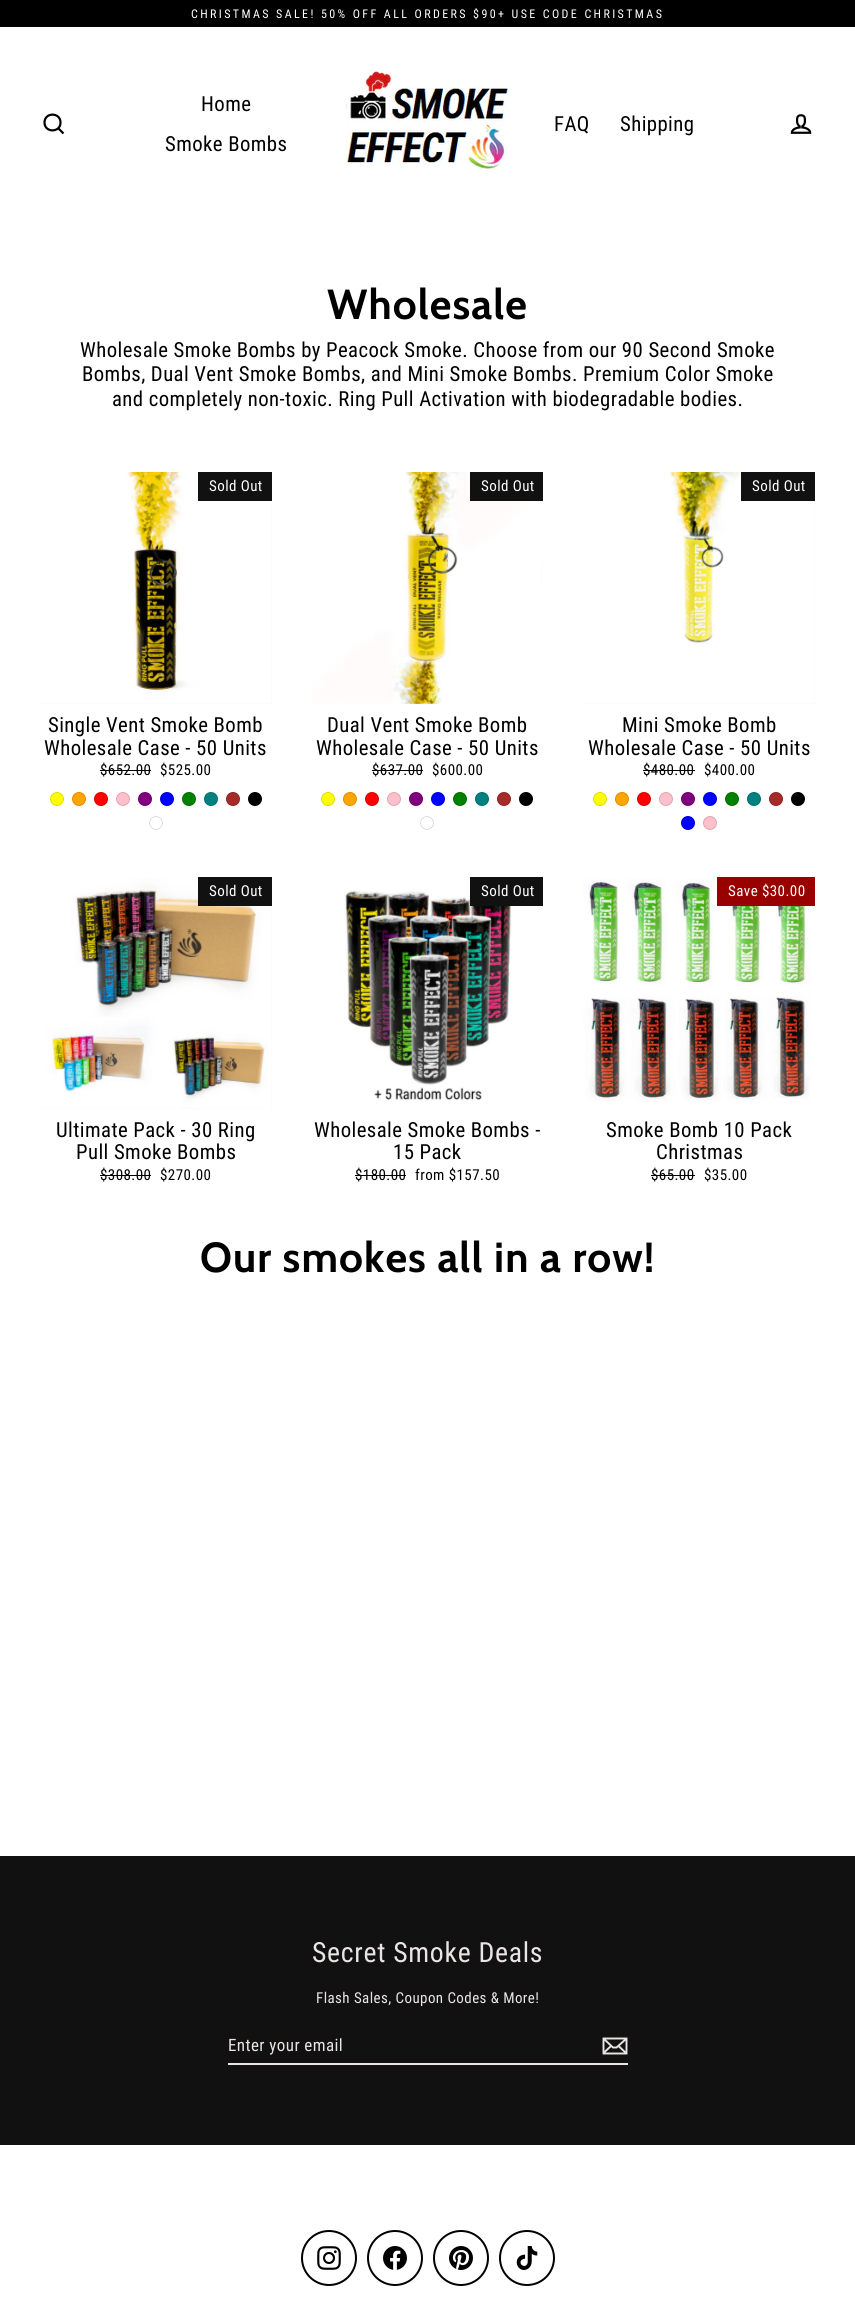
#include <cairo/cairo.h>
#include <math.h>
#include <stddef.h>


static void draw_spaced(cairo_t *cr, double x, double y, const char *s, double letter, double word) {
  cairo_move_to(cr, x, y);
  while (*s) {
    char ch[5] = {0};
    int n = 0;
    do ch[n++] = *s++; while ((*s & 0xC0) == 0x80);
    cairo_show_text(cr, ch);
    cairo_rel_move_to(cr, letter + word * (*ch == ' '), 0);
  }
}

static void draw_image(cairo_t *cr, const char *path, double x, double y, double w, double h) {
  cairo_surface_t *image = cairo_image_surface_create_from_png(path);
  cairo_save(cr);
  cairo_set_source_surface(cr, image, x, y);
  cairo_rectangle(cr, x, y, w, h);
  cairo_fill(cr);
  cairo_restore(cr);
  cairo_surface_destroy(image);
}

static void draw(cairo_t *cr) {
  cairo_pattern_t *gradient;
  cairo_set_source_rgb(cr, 1, 1, 1);
  cairo_paint(cr);
  cairo_set_source_rgb(cr, 0, 0, 0);
  cairo_rectangle(cr, 0, 0, 855, 27);
  cairo_fill(cr);
  cairo_new_path(cr);
  cairo_move_to(cr, 60.5, 122.5);
  cairo_curve_to(cr, 60.5, 133, 44.5, 133, 44.5, 122.5);
  cairo_curve_to(cr, 44.5, 112, 60.5, 112, 60.5, 122.5);
  cairo_close_path(cr);
  cairo_move_to(cr, 63.5, 133.5);
  cairo_line_to(cr, 58.5, 128.5);
  cairo_set_line_width(cr, 2.2);
  cairo_stroke(cr);
  draw_image(cr, "images/1.png", 343, 71, 168, 102);
  draw_image(cr, "images/2.png", 790, 114, 22, 20);
  gradient = cairo_pattern_create_linear(34, 505, 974, 671);
  cairo_pattern_add_color_stop_rgba(gradient, 0.4, 242 / 255.0, 242 / 255.0, 242 / 255.0, 1);
  cairo_pattern_add_color_stop_rgba(gradient, 0.63, 234 / 255.0, 234 / 255.0, 234 / 255.0, 1);
  cairo_pattern_add_color_stop_rgba(gradient, 0.79, 242 / 255.0, 242 / 255.0, 242 / 255.0, 1);
  cairo_set_source(cr, gradient);
  cairo_pattern_destroy(gradient);
  cairo_rectangle(cr, 40, 501, 232, 203);
  cairo_fill(cr);
  draw_image(cr, "images/3.png", 40, 472, 232, 232);
  cairo_set_source_rgb(cr, 17 / 255.0, 17 / 255.0, 17 / 255.0);
  cairo_rectangle(cr, 198, 472, 74, 29);
  cairo_fill(cr);
  cairo_set_source_rgb(cr, 0, 0, 0);
  cairo_rectangle(cr, 100, 770, 51, 1);
  cairo_fill(cr);
  cairo_set_source_rgb(cr, 1, 1, 0);
  cairo_arc(cr, 57, 799, 10, 0, 2 * M_PI);
  cairo_fill(cr);
  cairo_arc(cr, 57, 799, 6.5, 0, 2 * M_PI);
  cairo_set_source_rgb(cr, 217 / 255.0, 217 / 255.0, 0);
  cairo_set_line_width(cr, 1);
  cairo_stroke(cr);
  cairo_arc(cr, 57, 799, 8.5, 0, 2 * M_PI);
  cairo_set_source_rgb(cr, 1, 1, 1);
  cairo_set_line_width(cr, 3);
  cairo_stroke(cr);
  cairo_arc(cr, 57, 799, 10, 0, 2 * M_PI);
  cairo_set_line_width(cr, 2);
  cairo_stroke(cr);
  cairo_set_source_rgb(cr, 1, 165 / 255.0, 0);
  cairo_arc(cr, 79, 799, 10, 0, 2 * M_PI);
  cairo_fill(cr);
  cairo_arc(cr, 79, 799, 6.5, 0, 2 * M_PI);
  cairo_set_source_rgb(cr, 217 / 255.0, 140 / 255.0, 0);
  cairo_set_line_width(cr, 1);
  cairo_stroke(cr);
  cairo_arc(cr, 79, 799, 8.5, 0, 2 * M_PI);
  cairo_set_source_rgb(cr, 1, 1, 1);
  cairo_set_line_width(cr, 3);
  cairo_stroke(cr);
  cairo_arc(cr, 79, 799, 10, 0, 2 * M_PI);
  cairo_set_line_width(cr, 2);
  cairo_stroke(cr);
  cairo_set_source_rgb(cr, 1, 0, 0);
  cairo_arc(cr, 101, 799, 10, 0, 2 * M_PI);
  cairo_fill(cr);
  cairo_arc(cr, 101, 799, 6.5, 0, 2 * M_PI);
  cairo_set_source_rgb(cr, 217 / 255.0, 0, 0);
  cairo_set_line_width(cr, 1);
  cairo_stroke(cr);
  cairo_arc(cr, 101, 799, 8.5, 0, 2 * M_PI);
  cairo_set_source_rgb(cr, 1, 1, 1);
  cairo_set_line_width(cr, 3);
  cairo_stroke(cr);
  cairo_arc(cr, 101, 799, 10, 0, 2 * M_PI);
  cairo_set_line_width(cr, 2);
  cairo_stroke(cr);
  cairo_set_source_rgb(cr, 1, 192 / 255.0, 203 / 255.0);
  cairo_arc(cr, 123, 799, 10, 0, 2 * M_PI);
  cairo_fill(cr);
  cairo_arc(cr, 123, 799, 6.5, 0, 2 * M_PI);
  cairo_set_source_rgb(cr, 217 / 255.0, 163 / 255.0, 173 / 255.0);
  cairo_set_line_width(cr, 1);
  cairo_stroke(cr);
  cairo_arc(cr, 123, 799, 8.5, 0, 2 * M_PI);
  cairo_set_source_rgb(cr, 1, 1, 1);
  cairo_set_line_width(cr, 3);
  cairo_stroke(cr);
  cairo_arc(cr, 123, 799, 10, 0, 2 * M_PI);
  cairo_set_line_width(cr, 2);
  cairo_stroke(cr);
  cairo_set_source_rgb(cr, 128 / 255.0, 0, 128 / 255.0);
  cairo_arc(cr, 145, 799, 10, 0, 2 * M_PI);
  cairo_fill(cr);
  cairo_arc(cr, 145, 799, 6.5, 0, 2 * M_PI);
  cairo_set_source_rgb(cr, 109 / 255.0, 0, 109 / 255.0);
  cairo_set_line_width(cr, 1);
  cairo_stroke(cr);
  cairo_arc(cr, 145, 799, 8.5, 0, 2 * M_PI);
  cairo_set_source_rgb(cr, 1, 1, 1);
  cairo_set_line_width(cr, 3);
  cairo_stroke(cr);
  cairo_arc(cr, 145, 799, 10, 0, 2 * M_PI);
  cairo_set_line_width(cr, 2);
  cairo_stroke(cr);
  cairo_set_source_rgb(cr, 0, 0, 1);
  cairo_arc(cr, 167, 799, 10, 0, 2 * M_PI);
  cairo_fill(cr);
  cairo_arc(cr, 167, 799, 6.5, 0, 2 * M_PI);
  cairo_set_source_rgb(cr, 0, 0, 217 / 255.0);
  cairo_set_line_width(cr, 1);
  cairo_stroke(cr);
  cairo_arc(cr, 167, 799, 8.5, 0, 2 * M_PI);
  cairo_set_source_rgb(cr, 1, 1, 1);
  cairo_set_line_width(cr, 3);
  cairo_stroke(cr);
  cairo_arc(cr, 167, 799, 10, 0, 2 * M_PI);
  cairo_set_line_width(cr, 2);
  cairo_stroke(cr);
  cairo_set_source_rgb(cr, 0, 128 / 255.0, 0);
  cairo_arc(cr, 189, 799, 10, 0, 2 * M_PI);
  cairo_fill(cr);
  cairo_arc(cr, 189, 799, 6.5, 0, 2 * M_PI);
  cairo_set_source_rgb(cr, 0, 109 / 255.0, 0);
  cairo_set_line_width(cr, 1);
  cairo_stroke(cr);
  cairo_arc(cr, 189, 799, 8.5, 0, 2 * M_PI);
  cairo_set_source_rgb(cr, 1, 1, 1);
  cairo_set_line_width(cr, 3);
  cairo_stroke(cr);
  cairo_arc(cr, 189, 799, 10, 0, 2 * M_PI);
  cairo_set_line_width(cr, 2);
  cairo_stroke(cr);
  cairo_set_source_rgb(cr, 0, 128 / 255.0, 128 / 255.0);
  cairo_arc(cr, 211, 799, 10, 0, 2 * M_PI);
  cairo_fill(cr);
  cairo_arc(cr, 211, 799, 6.5, 0, 2 * M_PI);
  cairo_set_source_rgb(cr, 0, 109 / 255.0, 109 / 255.0);
  cairo_set_line_width(cr, 1);
  cairo_stroke(cr);
  cairo_arc(cr, 211, 799, 8.5, 0, 2 * M_PI);
  cairo_set_source_rgb(cr, 1, 1, 1);
  cairo_set_line_width(cr, 3);
  cairo_stroke(cr);
  cairo_arc(cr, 211, 799, 10, 0, 2 * M_PI);
  cairo_set_line_width(cr, 2);
  cairo_stroke(cr);
  cairo_set_source_rgb(cr, 165 / 255.0, 42 / 255.0, 42 / 255.0);
  cairo_arc(cr, 233, 799, 10, 0, 2 * M_PI);
  cairo_fill(cr);
  cairo_arc(cr, 233, 799, 6.5, 0, 2 * M_PI);
  cairo_set_source_rgb(cr, 140 / 255.0, 36 / 255.0, 36 / 255.0);
  cairo_set_line_width(cr, 1);
  cairo_stroke(cr);
  cairo_arc(cr, 233, 799, 8.5, 0, 2 * M_PI);
  cairo_set_source_rgb(cr, 1, 1, 1);
  cairo_set_line_width(cr, 3);
  cairo_stroke(cr);
  cairo_arc(cr, 233, 799, 10, 0, 2 * M_PI);
  cairo_set_line_width(cr, 2);
  cairo_stroke(cr);
  cairo_set_source_rgb(cr, 0, 0, 0);
  cairo_arc(cr, 255, 799, 8.5, 0, 2 * M_PI);
  cairo_fill_preserve(cr);
  cairo_set_source_rgb(cr, 1, 1, 1);
  cairo_set_line_width(cr, 3);
  cairo_stroke(cr);
  cairo_arc(cr, 255, 799, 10, 0, 2 * M_PI);
  cairo_set_line_width(cr, 2);
  cairo_stroke(cr);
  cairo_arc(cr, 156, 823, 6.5, 0, 2 * M_PI);
  cairo_set_source_rgb(cr, 217 / 255.0, 217 / 255.0, 217 / 255.0);
  cairo_set_line_width(cr, 1);
  cairo_stroke(cr);
  cairo_arc(cr, 156, 823, 8.5, 0, 2 * M_PI);
  cairo_set_source_rgb(cr, 1, 1, 1);
  cairo_set_line_width(cr, 3);
  cairo_stroke(cr);
  draw_image(cr, "images/4.png", 312, 472, 231, 232);
  cairo_set_source_rgb(cr, 17 / 255.0, 17 / 255.0, 17 / 255.0);
  cairo_rectangle(cr, 470, 472, 73, 29);
  cairo_fill(cr);
  cairo_set_source_rgb(cr, 0, 0, 0);
  cairo_rectangle(cr, 372, 770, 51, 1);
  cairo_fill(cr);
  cairo_set_source_rgb(cr, 1, 1, 0);
  cairo_arc(cr, 328, 799, 10, 0, 2 * M_PI);
  cairo_fill(cr);
  cairo_arc(cr, 328, 799, 6.5, 0, 2 * M_PI);
  cairo_set_source_rgb(cr, 217 / 255.0, 217 / 255.0, 0);
  cairo_set_line_width(cr, 1);
  cairo_stroke(cr);
  cairo_arc(cr, 328, 799, 8.5, 0, 2 * M_PI);
  cairo_set_source_rgb(cr, 1, 1, 1);
  cairo_set_line_width(cr, 3);
  cairo_stroke(cr);
  cairo_arc(cr, 328, 799, 10, 0, 2 * M_PI);
  cairo_set_line_width(cr, 2);
  cairo_stroke(cr);
  cairo_set_source_rgb(cr, 1, 165 / 255.0, 0);
  cairo_arc(cr, 350, 799, 10, 0, 2 * M_PI);
  cairo_fill(cr);
  cairo_arc(cr, 350, 799, 6.5, 0, 2 * M_PI);
  cairo_set_source_rgb(cr, 217 / 255.0, 140 / 255.0, 0);
  cairo_set_line_width(cr, 1);
  cairo_stroke(cr);
  cairo_arc(cr, 350, 799, 8.5, 0, 2 * M_PI);
  cairo_set_source_rgb(cr, 1, 1, 1);
  cairo_set_line_width(cr, 3);
  cairo_stroke(cr);
  cairo_arc(cr, 350, 799, 10, 0, 2 * M_PI);
  cairo_set_line_width(cr, 2);
  cairo_stroke(cr);
  cairo_set_source_rgb(cr, 1, 0, 0);
  cairo_arc(cr, 372, 799, 10, 0, 2 * M_PI);
  cairo_fill(cr);
  cairo_arc(cr, 372, 799, 6.5, 0, 2 * M_PI);
  cairo_set_source_rgb(cr, 217 / 255.0, 0, 0);
  cairo_set_line_width(cr, 1);
  cairo_stroke(cr);
  cairo_arc(cr, 372, 799, 8.5, 0, 2 * M_PI);
  cairo_set_source_rgb(cr, 1, 1, 1);
  cairo_set_line_width(cr, 3);
  cairo_stroke(cr);
  cairo_arc(cr, 372, 799, 10, 0, 2 * M_PI);
  cairo_set_line_width(cr, 2);
  cairo_stroke(cr);
  cairo_set_source_rgb(cr, 1, 192 / 255.0, 203 / 255.0);
  cairo_arc(cr, 394, 799, 10, 0, 2 * M_PI);
  cairo_fill(cr);
  cairo_arc(cr, 394, 799, 6.5, 0, 2 * M_PI);
  cairo_set_source_rgb(cr, 217 / 255.0, 163 / 255.0, 173 / 255.0);
  cairo_set_line_width(cr, 1);
  cairo_stroke(cr);
  cairo_arc(cr, 394, 799, 8.5, 0, 2 * M_PI);
  cairo_set_source_rgb(cr, 1, 1, 1);
  cairo_set_line_width(cr, 3);
  cairo_stroke(cr);
  cairo_arc(cr, 394, 799, 10, 0, 2 * M_PI);
  cairo_set_line_width(cr, 2);
  cairo_stroke(cr);
  cairo_set_source_rgb(cr, 128 / 255.0, 0, 128 / 255.0);
  cairo_arc(cr, 416, 799, 10, 0, 2 * M_PI);
  cairo_fill(cr);
  cairo_arc(cr, 416, 799, 6.5, 0, 2 * M_PI);
  cairo_set_source_rgb(cr, 109 / 255.0, 0, 109 / 255.0);
  cairo_set_line_width(cr, 1);
  cairo_stroke(cr);
  cairo_arc(cr, 416, 799, 8.5, 0, 2 * M_PI);
  cairo_set_source_rgb(cr, 1, 1, 1);
  cairo_set_line_width(cr, 3);
  cairo_stroke(cr);
  cairo_arc(cr, 416, 799, 10, 0, 2 * M_PI);
  cairo_set_line_width(cr, 2);
  cairo_stroke(cr);
  cairo_set_source_rgb(cr, 0, 0, 1);
  cairo_arc(cr, 438, 799, 10, 0, 2 * M_PI);
  cairo_fill(cr);
  cairo_arc(cr, 438, 799, 6.5, 0, 2 * M_PI);
  cairo_set_source_rgb(cr, 0, 0, 217 / 255.0);
  cairo_set_line_width(cr, 1);
  cairo_stroke(cr);
  cairo_arc(cr, 438, 799, 8.5, 0, 2 * M_PI);
  cairo_set_source_rgb(cr, 1, 1, 1);
  cairo_set_line_width(cr, 3);
  cairo_stroke(cr);
  cairo_arc(cr, 438, 799, 10, 0, 2 * M_PI);
  cairo_set_line_width(cr, 2);
  cairo_stroke(cr);
  cairo_set_source_rgb(cr, 0, 128 / 255.0, 0);
  cairo_arc(cr, 460, 799, 10, 0, 2 * M_PI);
  cairo_fill(cr);
  cairo_arc(cr, 460, 799, 6.5, 0, 2 * M_PI);
  cairo_set_source_rgb(cr, 0, 109 / 255.0, 0);
  cairo_set_line_width(cr, 1);
  cairo_stroke(cr);
  cairo_arc(cr, 460, 799, 8.5, 0, 2 * M_PI);
  cairo_set_source_rgb(cr, 1, 1, 1);
  cairo_set_line_width(cr, 3);
  cairo_stroke(cr);
  cairo_arc(cr, 460, 799, 10, 0, 2 * M_PI);
  cairo_set_line_width(cr, 2);
  cairo_stroke(cr);
  cairo_set_source_rgb(cr, 0, 128 / 255.0, 128 / 255.0);
  cairo_arc(cr, 482, 799, 10, 0, 2 * M_PI);
  cairo_fill(cr);
  cairo_arc(cr, 482, 799, 6.5, 0, 2 * M_PI);
  cairo_set_source_rgb(cr, 0, 109 / 255.0, 109 / 255.0);
  cairo_set_line_width(cr, 1);
  cairo_stroke(cr);
  cairo_arc(cr, 482, 799, 8.5, 0, 2 * M_PI);
  cairo_set_source_rgb(cr, 1, 1, 1);
  cairo_set_line_width(cr, 3);
  cairo_stroke(cr);
  cairo_arc(cr, 482, 799, 10, 0, 2 * M_PI);
  cairo_set_line_width(cr, 2);
  cairo_stroke(cr);
  cairo_set_source_rgb(cr, 165 / 255.0, 42 / 255.0, 42 / 255.0);
  cairo_arc(cr, 504, 799, 10, 0, 2 * M_PI);
  cairo_fill(cr);
  cairo_arc(cr, 504, 799, 6.5, 0, 2 * M_PI);
  cairo_set_source_rgb(cr, 140 / 255.0, 36 / 255.0, 36 / 255.0);
  cairo_set_line_width(cr, 1);
  cairo_stroke(cr);
  cairo_arc(cr, 504, 799, 8.5, 0, 2 * M_PI);
  cairo_set_source_rgb(cr, 1, 1, 1);
  cairo_set_line_width(cr, 3);
  cairo_stroke(cr);
  cairo_arc(cr, 504, 799, 10, 0, 2 * M_PI);
  cairo_set_line_width(cr, 2);
  cairo_stroke(cr);
  cairo_set_source_rgb(cr, 0, 0, 0);
  cairo_arc(cr, 526, 799, 8.5, 0, 2 * M_PI);
  cairo_fill_preserve(cr);
  cairo_set_source_rgb(cr, 1, 1, 1);
  cairo_set_line_width(cr, 3);
  cairo_stroke(cr);
  cairo_arc(cr, 526, 799, 10, 0, 2 * M_PI);
  cairo_set_line_width(cr, 2);
  cairo_stroke(cr);
  cairo_arc(cr, 427, 823, 6.5, 0, 2 * M_PI);
  cairo_set_source_rgb(cr, 217 / 255.0, 217 / 255.0, 217 / 255.0);
  cairo_set_line_width(cr, 1);
  cairo_stroke(cr);
  cairo_arc(cr, 427, 823, 8.5, 0, 2 * M_PI);
  cairo_set_source_rgb(cr, 1, 1, 1);
  cairo_set_line_width(cr, 3);
  cairo_stroke(cr);
  gradient = cairo_pattern_create_linear(577, 505, 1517, 671);
  cairo_pattern_add_color_stop_rgba(gradient, 0.4, 242 / 255.0, 242 / 255.0, 242 / 255.0, 1);
  cairo_pattern_add_color_stop_rgba(gradient, 0.63, 234 / 255.0, 234 / 255.0, 234 / 255.0, 1);
  cairo_pattern_add_color_stop_rgba(gradient, 0.79, 242 / 255.0, 242 / 255.0, 242 / 255.0, 1);
  cairo_set_source(cr, gradient);
  cairo_pattern_destroy(gradient);
  cairo_rectangle(cr, 583, 501, 232, 203);
  cairo_fill(cr);
  draw_image(cr, "images/5.png", 583, 472, 232, 232);
  cairo_set_source_rgb(cr, 17 / 255.0, 17 / 255.0, 17 / 255.0);
  cairo_rectangle(cr, 741, 472, 74, 29);
  cairo_fill(cr);
  cairo_set_source_rgb(cr, 0, 0, 0);
  cairo_rectangle(cr, 643, 770, 52, 1);
  cairo_fill(cr);
  cairo_set_source_rgb(cr, 1, 1, 0);
  cairo_arc(cr, 600, 799, 10, 0, 2 * M_PI);
  cairo_fill(cr);
  cairo_arc(cr, 600, 799, 6.5, 0, 2 * M_PI);
  cairo_set_source_rgb(cr, 217 / 255.0, 217 / 255.0, 0);
  cairo_set_line_width(cr, 1);
  cairo_stroke(cr);
  cairo_arc(cr, 600, 799, 8.5, 0, 2 * M_PI);
  cairo_set_source_rgb(cr, 1, 1, 1);
  cairo_set_line_width(cr, 3);
  cairo_stroke(cr);
  cairo_arc(cr, 600, 799, 10, 0, 2 * M_PI);
  cairo_set_line_width(cr, 2);
  cairo_stroke(cr);
  cairo_set_source_rgb(cr, 1, 165 / 255.0, 0);
  cairo_arc(cr, 622, 799, 10, 0, 2 * M_PI);
  cairo_fill(cr);
  cairo_arc(cr, 622, 799, 6.5, 0, 2 * M_PI);
  cairo_set_source_rgb(cr, 217 / 255.0, 140 / 255.0, 0);
  cairo_set_line_width(cr, 1);
  cairo_stroke(cr);
  cairo_arc(cr, 622, 799, 8.5, 0, 2 * M_PI);
  cairo_set_source_rgb(cr, 1, 1, 1);
  cairo_set_line_width(cr, 3);
  cairo_stroke(cr);
  cairo_arc(cr, 622, 799, 10, 0, 2 * M_PI);
  cairo_set_line_width(cr, 2);
  cairo_stroke(cr);
  cairo_set_source_rgb(cr, 1, 0, 0);
  cairo_arc(cr, 644, 799, 10, 0, 2 * M_PI);
  cairo_fill(cr);
  cairo_arc(cr, 644, 799, 6.5, 0, 2 * M_PI);
  cairo_set_source_rgb(cr, 217 / 255.0, 0, 0);
  cairo_set_line_width(cr, 1);
  cairo_stroke(cr);
  cairo_arc(cr, 644, 799, 8.5, 0, 2 * M_PI);
  cairo_set_source_rgb(cr, 1, 1, 1);
  cairo_set_line_width(cr, 3);
  cairo_stroke(cr);
  cairo_arc(cr, 644, 799, 10, 0, 2 * M_PI);
  cairo_set_line_width(cr, 2);
  cairo_stroke(cr);
  cairo_set_source_rgb(cr, 1, 192 / 255.0, 203 / 255.0);
  cairo_arc(cr, 666, 799, 10, 0, 2 * M_PI);
  cairo_fill(cr);
  cairo_arc(cr, 666, 799, 6.5, 0, 2 * M_PI);
  cairo_set_source_rgb(cr, 217 / 255.0, 163 / 255.0, 173 / 255.0);
  cairo_set_line_width(cr, 1);
  cairo_stroke(cr);
  cairo_arc(cr, 666, 799, 8.5, 0, 2 * M_PI);
  cairo_set_source_rgb(cr, 1, 1, 1);
  cairo_set_line_width(cr, 3);
  cairo_stroke(cr);
  cairo_arc(cr, 666, 799, 10, 0, 2 * M_PI);
  cairo_set_line_width(cr, 2);
  cairo_stroke(cr);
  cairo_set_source_rgb(cr, 128 / 255.0, 0, 128 / 255.0);
  cairo_arc(cr, 688, 799, 10, 0, 2 * M_PI);
  cairo_fill(cr);
  cairo_arc(cr, 688, 799, 6.5, 0, 2 * M_PI);
  cairo_set_source_rgb(cr, 109 / 255.0, 0, 109 / 255.0);
  cairo_set_line_width(cr, 1);
  cairo_stroke(cr);
  cairo_arc(cr, 688, 799, 8.5, 0, 2 * M_PI);
  cairo_set_source_rgb(cr, 1, 1, 1);
  cairo_set_line_width(cr, 3);
  cairo_stroke(cr);
  cairo_arc(cr, 688, 799, 10, 0, 2 * M_PI);
  cairo_set_line_width(cr, 2);
  cairo_stroke(cr);
  cairo_set_source_rgb(cr, 0, 0, 1);
  cairo_arc(cr, 710, 799, 10, 0, 2 * M_PI);
  cairo_fill(cr);
  cairo_arc(cr, 710, 799, 6.5, 0, 2 * M_PI);
  cairo_set_source_rgb(cr, 0, 0, 217 / 255.0);
  cairo_set_line_width(cr, 1);
  cairo_stroke(cr);
  cairo_arc(cr, 710, 799, 8.5, 0, 2 * M_PI);
  cairo_set_source_rgb(cr, 1, 1, 1);
  cairo_set_line_width(cr, 3);
  cairo_stroke(cr);
  cairo_arc(cr, 710, 799, 10, 0, 2 * M_PI);
  cairo_set_line_width(cr, 2);
  cairo_stroke(cr);
  cairo_set_source_rgb(cr, 0, 128 / 255.0, 0);
  cairo_arc(cr, 732, 799, 10, 0, 2 * M_PI);
  cairo_fill(cr);
  cairo_arc(cr, 732, 799, 6.5, 0, 2 * M_PI);
  cairo_set_source_rgb(cr, 0, 109 / 255.0, 0);
  cairo_set_line_width(cr, 1);
  cairo_stroke(cr);
  cairo_arc(cr, 732, 799, 8.5, 0, 2 * M_PI);
  cairo_set_source_rgb(cr, 1, 1, 1);
  cairo_set_line_width(cr, 3);
  cairo_stroke(cr);
  cairo_arc(cr, 732, 799, 10, 0, 2 * M_PI);
  cairo_set_line_width(cr, 2);
  cairo_stroke(cr);
  cairo_set_source_rgb(cr, 0, 128 / 255.0, 128 / 255.0);
  cairo_arc(cr, 754, 799, 10, 0, 2 * M_PI);
  cairo_fill(cr);
  cairo_arc(cr, 754, 799, 6.5, 0, 2 * M_PI);
  cairo_set_source_rgb(cr, 0, 109 / 255.0, 109 / 255.0);
  cairo_set_line_width(cr, 1);
  cairo_stroke(cr);
  cairo_arc(cr, 754, 799, 8.5, 0, 2 * M_PI);
  cairo_set_source_rgb(cr, 1, 1, 1);
  cairo_set_line_width(cr, 3);
  cairo_stroke(cr);
  cairo_arc(cr, 754, 799, 10, 0, 2 * M_PI);
  cairo_set_line_width(cr, 2);
  cairo_stroke(cr);
  cairo_set_source_rgb(cr, 165 / 255.0, 42 / 255.0, 42 / 255.0);
  cairo_arc(cr, 776, 799, 10, 0, 2 * M_PI);
  cairo_fill(cr);
  cairo_arc(cr, 776, 799, 6.5, 0, 2 * M_PI);
  cairo_set_source_rgb(cr, 140 / 255.0, 36 / 255.0, 36 / 255.0);
  cairo_set_line_width(cr, 1);
  cairo_stroke(cr);
  cairo_arc(cr, 776, 799, 8.5, 0, 2 * M_PI);
  cairo_set_source_rgb(cr, 1, 1, 1);
  cairo_set_line_width(cr, 3);
  cairo_stroke(cr);
  cairo_arc(cr, 776, 799, 10, 0, 2 * M_PI);
  cairo_set_line_width(cr, 2);
  cairo_stroke(cr);
  cairo_set_source_rgb(cr, 0, 0, 0);
  cairo_arc(cr, 798, 799, 8.5, 0, 2 * M_PI);
  cairo_fill_preserve(cr);
  cairo_set_source_rgb(cr, 1, 1, 1);
  cairo_set_line_width(cr, 3);
  cairo_stroke(cr);
  cairo_arc(cr, 798, 799, 10, 0, 2 * M_PI);
  cairo_set_line_width(cr, 2);
  cairo_stroke(cr);
  cairo_set_source_rgb(cr, 0, 0, 1);
  cairo_arc(cr, 688, 823, 10, 0, 2 * M_PI);
  cairo_fill(cr);
  cairo_arc(cr, 688, 823, 6.5, 0, 2 * M_PI);
  cairo_set_source_rgb(cr, 0, 0, 217 / 255.0);
  cairo_set_line_width(cr, 1);
  cairo_stroke(cr);
  cairo_arc(cr, 688, 823, 8.5, 0, 2 * M_PI);
  cairo_set_source_rgb(cr, 1, 1, 1);
  cairo_set_line_width(cr, 3);
  cairo_stroke(cr);
  cairo_arc(cr, 688, 823, 10, 0, 2 * M_PI);
  cairo_set_line_width(cr, 2);
  cairo_stroke(cr);
  cairo_set_source_rgb(cr, 1, 192 / 255.0, 203 / 255.0);
  cairo_arc(cr, 710, 823, 10, 0, 2 * M_PI);
  cairo_fill(cr);
  cairo_arc(cr, 710, 823, 6.5, 0, 2 * M_PI);
  cairo_set_source_rgb(cr, 217 / 255.0, 163 / 255.0, 173 / 255.0);
  cairo_set_line_width(cr, 1);
  cairo_stroke(cr);
  cairo_arc(cr, 710, 823, 8.5, 0, 2 * M_PI);
  cairo_set_source_rgb(cr, 1, 1, 1);
  cairo_set_line_width(cr, 3);
  cairo_stroke(cr);
  cairo_arc(cr, 710, 823, 10, 0, 2 * M_PI);
  cairo_set_line_width(cr, 2);
  cairo_stroke(cr);
  gradient = cairo_pattern_create_linear(34, 910, 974, 1076);
  cairo_pattern_add_color_stop_rgba(gradient, 0.4, 242 / 255.0, 242 / 255.0, 242 / 255.0, 1);
  cairo_pattern_add_color_stop_rgba(gradient, 0.63, 234 / 255.0, 234 / 255.0, 234 / 255.0, 1);
  cairo_pattern_add_color_stop_rgba(gradient, 0.79, 242 / 255.0, 242 / 255.0, 242 / 255.0, 1);
  cairo_set_source(cr, gradient);
  cairo_pattern_destroy(gradient);
  cairo_rectangle(cr, 40, 906, 232, 203);
  cairo_fill(cr);
  draw_image(cr, "images/6.png", 40, 877, 232, 232);
  cairo_set_source_rgb(cr, 17 / 255.0, 17 / 255.0, 17 / 255.0);
  cairo_rectangle(cr, 198, 877, 74, 29);
  cairo_fill(cr);
  cairo_set_source_rgb(cr, 0, 0, 0);
  cairo_rectangle(cr, 100, 1175, 51, 1);
  cairo_fill(cr);
  draw_image(cr, "images/7.png", 312, 877, 231, 232);
  cairo_set_source_rgb(cr, 17 / 255.0, 17 / 255.0, 17 / 255.0);
  cairo_rectangle(cr, 470, 877, 73, 29);
  cairo_fill(cr);
  cairo_set_source_rgb(cr, 0, 0, 0);
  cairo_rectangle(cr, 355, 1175, 51, 1);
  cairo_fill(cr);
  draw_image(cr, "images/8.png", 583, 877, 232, 232);
  cairo_set_source_rgb(cr, 153 / 255.0, 0, 0);
  cairo_rectangle(cr, 717, 877, 98, 29);
  cairo_fill(cr);
  cairo_set_source_rgb(cr, 0, 0, 0);
  cairo_rectangle(cr, 651, 1175, 44, 1);
  cairo_fill(cr);
  cairo_set_source_rgb(cr, 17 / 255.0, 17 / 255.0, 17 / 255.0);
  cairo_rectangle(cr, 0, 1856, 855, 289);
  cairo_fill(cr);
  cairo_set_source_rgb(cr, 234 / 255.0, 229 / 255.0, 228 / 255.0);
  cairo_rectangle(cr, 228, 2063, 400, 2);
  cairo_fill(cr);
  cairo_new_path(cr);
  cairo_move_to(cr, 626.5, 2053.5);
  cairo_line_to(cr, 603.5, 2053.5);
  cairo_line_to(cr, 603.5, 2038.5);
  cairo_line_to(cr, 626.5, 2038.5);
  cairo_close_path(cr);
  cairo_move_to(cr, 603.5, 2038.5);
  cairo_line_to(cr, 613, 2047.5);
  cairo_line_to(cr, 616.5, 2047.5);
  cairo_line_to(cr, 626.5, 2038.5);
  cairo_move_to(cr, 611, 2046);
  cairo_line_to(cr, 603.5, 2053);
  cairo_move_to(cr, 626.5, 2053.5);
  cairo_line_to(cr, 618.5, 2046);
  cairo_set_line_width(cr, 1.9);
  cairo_stroke(cr);
  cairo_arc(cr, 329, 2258, 27, 0, 2 * M_PI);
  cairo_set_source_rgb(cr, 0, 0, 0);
  cairo_set_line_width(cr, 2);
  cairo_stroke(cr);
  draw_image(cr, "images/9.png", 317, 2246, 24, 24);
  cairo_arc(cr, 395, 2258, 27, 0, 2 * M_PI);
  cairo_stroke(cr);
  draw_image(cr, "images/10.png", 383, 2246, 24, 24);
  cairo_arc(cr, 461, 2258, 27, 0, 2 * M_PI);
  cairo_stroke(cr);
  draw_image(cr, "images/11.png", 449, 2246, 24, 24);
  cairo_arc(cr, 527, 2258, 27, 0, 2 * M_PI);
  cairo_stroke(cr);
  draw_image(cr, "images/12.png", 516, 2246, 22, 24);
  cairo_select_font_face(cr, "Roboto Condensed", CAIRO_FONT_SLANT_NORMAL, CAIRO_FONT_WEIGHT_NORMAL);
  cairo_set_font_size(cr, 12);
  cairo_set_source_rgb(cr, 1, 1, 1);
  draw_spaced(cr, 191, 18, "CHRISTMAS SALE! 50% OFF ALL ORDERS $90+ USE CODE CHRISTMAS", 2.4, 0);
  cairo_set_font_size(cr, 20.75);
  cairo_set_source_rgb(cr, 0, 0, 0);
  draw_spaced(cr, 201, 111, "Home", 0.42, 0);
  draw_spaced(cr, 165, 151, "Smoke Bombs", 0.42, 0);
  draw_spaced(cr, 554, 131, "FAQ", 0.42, 0);
  draw_spaced(cr, 620, 131, "Shipping", 0.42, 0);
  cairo_select_font_face(cr, "Cabin", CAIRO_FONT_SLANT_NORMAL, CAIRO_FONT_WEIGHT_BOLD);
  cairo_set_font_size(cr, 42);
  draw_spaced(cr, 327, 319, "Wholesale", 1.05, 0);
  cairo_select_font_face(cr, "Roboto Condensed", CAIRO_FONT_SLANT_NORMAL, CAIRO_FONT_WEIGHT_NORMAL);
  cairo_set_font_size(cr, 20.75);
  draw_spaced(cr, 80, 357, "Wholesale Smoke Bombs by Peacock Smoke. Choose from our 90 Second Smoke", 0.42, 0);
  draw_spaced(cr, 82, 381, "Bombs, Dual Vent Smoke Bombs, and Mini Smoke Bombs. Premium Color Smoke", 0.42, 0);
  draw_spaced(cr, 112, 406, "and completely non-toxic. Ring Pull Activation with biodegradable bodies.", 0.42, 0);
  cairo_set_font_size(cr, 15);
  cairo_set_source_rgb(cr, 1, 1, 1);
  draw_spaced(cr, 209, 491, "Sold Out", 0.42, 0);
  cairo_set_font_size(cr, 20.75);
  cairo_set_source_rgb(cr, 0, 0, 0);
  draw_spaced(cr, 48, 732, "Single Vent Smoke Bomb", 0.42, 0);
  draw_spaced(cr, 44, 755, "Wholesale Case - 50 Units", 0.42, 0);
  cairo_set_font_size(cr, 15);
  draw_spaced(cr, 100, 775, "$652.00", 0.42, 0);
  draw_spaced(cr, 160, 775, "$525.00", 0.42, 0);
  cairo_set_source_rgb(cr, 1, 1, 1);
  draw_spaced(cr, 481, 491, "Sold Out", 0.42, 0);
  cairo_set_font_size(cr, 20.75);
  cairo_set_source_rgb(cr, 0, 0, 0);
  draw_spaced(cr, 327, 732, "Dual Vent Smoke Bomb", 0.42, 0);
  draw_spaced(cr, 316, 755, "Wholesale Case - 50 Units", 0.42, 0);
  cairo_set_font_size(cr, 15);
  draw_spaced(cr, 372, 775, "$637.00", 0.42, 0);
  draw_spaced(cr, 432, 775, "$600.00", 0.42, 0);
  cairo_set_source_rgb(cr, 1, 1, 1);
  draw_spaced(cr, 752, 491, "Sold Out", 0.42, 0);
  cairo_set_font_size(cr, 20.75);
  cairo_set_source_rgb(cr, 0, 0, 0);
  draw_spaced(cr, 622, 732, "Mini Smoke Bomb", 0.42, 0);
  draw_spaced(cr, 588, 755, "Wholesale Case - 50 Units", 0.42, 0);
  cairo_set_font_size(cr, 15);
  draw_spaced(cr, 643, 775, "$480.00", 0.42, 0);
  draw_spaced(cr, 704, 775, "$400.00", 0.42, 0);
  cairo_set_source_rgb(cr, 1, 1, 1);
  draw_spaced(cr, 209, 896, "Sold Out", 0.42, 0);
  cairo_set_font_size(cr, 20.75);
  cairo_set_source_rgb(cr, 0, 0, 0);
  draw_spaced(cr, 56, 1137, "Ultimate Pack - 30 Ring", 0.42, 0);
  draw_spaced(cr, 76, 1159, "Pull Smoke Bombs", 0.42, 0);
  cairo_set_font_size(cr, 15);
  draw_spaced(cr, 100, 1180, "$308.00", 0.42, 0);
  draw_spaced(cr, 160, 1180, "$270.00", 0.42, 0);
  cairo_set_source_rgb(cr, 1, 1, 1);
  draw_spaced(cr, 481, 896, "Sold Out", 0.42, 0);
  cairo_set_font_size(cr, 20.75);
  cairo_set_source_rgb(cr, 0, 0, 0);
  draw_spaced(cr, 314, 1137, "Wholesale Smoke Bombs -", 0.42, 0);
  draw_spaced(cr, 393, 1159, "15 Pack", 0.42, 0);
  cairo_set_font_size(cr, 15);
  draw_spaced(cr, 355, 1180, "$180.00", 0.42, 0);
  draw_spaced(cr, 415, 1180, "from $157.50", 0.42, 0);
  cairo_set_source_rgb(cr, 1, 1, 1);
  draw_spaced(cr, 728, 896, "Save $30.00", 0.42, 0);
  cairo_set_font_size(cr, 20.75);
  cairo_set_source_rgb(cr, 0, 0, 0);
  draw_spaced(cr, 606, 1137, "Smoke Bomb 10 Pack", 0.42, 0);
  draw_spaced(cr, 656, 1159, "Christmas", 0.42, 0);
  cairo_set_font_size(cr, 15);
  draw_spaced(cr, 651, 1180, "$65.00", 0.42, 0);
  draw_spaced(cr, 704, 1180, "$35.00", 0.42, 0);
  cairo_select_font_face(cr, "Cabin", CAIRO_FONT_SLANT_NORMAL, CAIRO_FONT_WEIGHT_BOLD);
  cairo_set_font_size(cr, 42);
  draw_spaced(cr, 200, 1272, "Our smokes all in a row!", 1.05, 0);
  cairo_select_font_face(cr, "Roboto Condensed", CAIRO_FONT_SLANT_NORMAL, CAIRO_FONT_WEIGHT_NORMAL);
  cairo_set_font_size(cr, 27.75);
  cairo_set_source_rgb(cr, 234 / 255.0, 229 / 255.0, 228 / 255.0);
  draw_spaced(cr, 312, 1962, "Secret Smoke Deals", 0.7, 0);
  cairo_set_font_size(cr, 15);
  draw_spaced(cr, 316, 2003, "Flash Sales, Coupon Codes & More!", 0.42, 0);
  cairo_set_font_size(cr, 17);
  draw_spaced(cr, 228, 2051, "Enter your email", 0.42, 0);
}

int main(void) {
  cairo_surface_t *surface = cairo_image_surface_create(CAIRO_FORMAT_RGB24, 855, 2299);
  cairo_t *cr = cairo_create(surface);
  cairo_font_options_t *options = cairo_font_options_create();
  cairo_font_options_set_hint_metrics(options, CAIRO_HINT_METRICS_OFF);
  cairo_font_options_set_hint_style(options, CAIRO_HINT_STYLE_NONE);
  cairo_set_font_options(cr, options);
  cairo_set_miter_limit(cr, 4);
  draw(cr);
  cairo_surface_write_to_png(surface, "out.png");
  cairo_font_options_destroy(options);
  cairo_destroy(cr);
  cairo_surface_destroy(surface);
  return 0;
}
